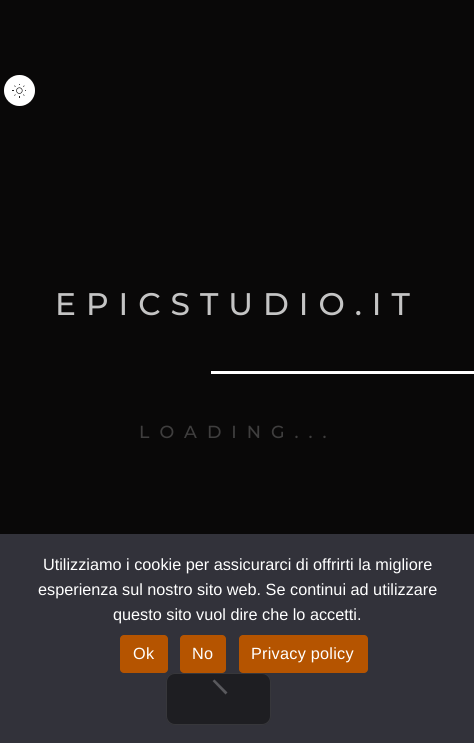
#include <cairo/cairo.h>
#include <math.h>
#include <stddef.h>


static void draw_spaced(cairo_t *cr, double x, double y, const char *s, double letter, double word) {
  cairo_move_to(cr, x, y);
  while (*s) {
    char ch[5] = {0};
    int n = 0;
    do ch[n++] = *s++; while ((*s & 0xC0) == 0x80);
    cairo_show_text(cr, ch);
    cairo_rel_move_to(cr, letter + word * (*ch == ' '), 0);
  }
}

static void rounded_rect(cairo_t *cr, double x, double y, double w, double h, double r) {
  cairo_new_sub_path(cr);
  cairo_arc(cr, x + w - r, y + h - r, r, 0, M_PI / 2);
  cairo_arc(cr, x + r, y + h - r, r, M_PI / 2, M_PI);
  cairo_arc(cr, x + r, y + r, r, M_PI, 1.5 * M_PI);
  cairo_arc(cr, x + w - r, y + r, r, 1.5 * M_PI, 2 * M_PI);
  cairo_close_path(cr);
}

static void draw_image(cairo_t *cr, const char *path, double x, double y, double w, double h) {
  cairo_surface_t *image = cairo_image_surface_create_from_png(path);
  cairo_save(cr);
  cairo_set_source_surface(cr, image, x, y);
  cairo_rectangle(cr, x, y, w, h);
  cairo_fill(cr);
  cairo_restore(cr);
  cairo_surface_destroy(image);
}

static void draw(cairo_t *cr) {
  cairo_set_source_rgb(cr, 9 / 255.0, 8 / 255.0, 8 / 255.0);
  cairo_paint(cr);
  cairo_set_source_rgb(cr, 1, 1, 1);
  cairo_arc(cr, 19.5, 90.5, 15.5, 0, 2 * M_PI);
  cairo_fill(cr);
  cairo_arc(cr, 19.5, 90.5, 15, 0, 2 * M_PI);
  cairo_set_source_rgba(cr, 1, 1, 1, 0.18);
  cairo_set_line_width(cr, 1);
  cairo_stroke(cr);
  draw_image(cr, "images/1.png", 12, 84, 14, 14);
  cairo_set_source_rgb(cr, 1, 1, 1);
  cairo_rectangle(cr, 211, 371, 263, 3);
  cairo_fill(cr);
  cairo_set_source_rgb(cr, 50 / 255.0, 50 / 255.0, 58 / 255.0);
  cairo_rectangle(cr, 0, 534, 474, 209);
  cairo_fill(cr);
  cairo_set_source_rgb(cr, 181 / 255.0, 84 / 255.0, 0);
  rounded_rect(cr, 120, 635, 48, 38, 4);
  cairo_fill(cr);
  rounded_rect(cr, 180, 635, 46, 38, 4);
  cairo_fill(cr);
  rounded_rect(cr, 239, 635, 129, 38, 4);
  cairo_fill(cr);
  cairo_set_source_rgb(cr, 30 / 255.0, 30 / 255.0, 34 / 255.0);
  rounded_rect(cr, 166, 673, 105, 52, 9);
  cairo_fill(cr);
  rounded_rect(cr, 166.5, 673.5, 104, 51, 8.5);
  cairo_set_source_rgba(cr, 81 / 255.0, 81 / 255.0, 85 / 255.0, 0.5);
  cairo_stroke(cr);
  cairo_set_source_rgb(cr, 89 / 255.0, 89 / 255.0, 93 / 255.0);
  cairo_new_path(cr);
  cairo_move_to(cr, 212.5, 681);
  cairo_line_to(cr, 214.5, 679.5);
  cairo_line_to(cr, 227.5, 692.5);
  cairo_line_to(cr, 225.5, 694.5);
  cairo_close_path(cr);
  cairo_fill(cr);
  cairo_select_font_face(cr, "Montserrat Medium", CAIRO_FONT_SLANT_NORMAL, CAIRO_FONT_WEIGHT_NORMAL);
  cairo_set_font_size(cr, 31.25);
  cairo_set_source_rgb(cr, 196 / 255.0, 196 / 255.0, 196 / 255.0);
  draw_spaced(cr, 55, 315, "EPICSTUDIO.IT", 10, 0);
  cairo_set_font_size(cr, 17.5);
  cairo_set_source_rgb(cr, 63 / 255.0, 62 / 255.0, 62 / 255.0);
  draw_spaced(cr, 139, 438, "LOADING...", 10, 0);
  cairo_select_font_face(cr, "Liberation Sans", CAIRO_FONT_SLANT_NORMAL, CAIRO_FONT_WEIGHT_NORMAL);
  cairo_set_font_size(cr, 16.25);
  cairo_set_source_rgb(cr, 1, 1, 1);
  cairo_move_to(cr, 43, 570);
  cairo_show_text(cr, "Utilizziamo i cookie per assicurarci di offrirti la migliore");
  cairo_move_to(cr, 38, 595);
  cairo_show_text(cr, "esperienza sul nostro sito web. Se continui ad utilizzare");
  cairo_move_to(cr, 113, 620);
  cairo_show_text(cr, "questo sito vuol dire che lo accetti.");
  draw_spaced(cr, 133, 659, "Ok", 0.25, 0);
  draw_spaced(cr, 192, 659, "No", 0.25, 0);
  draw_spaced(cr, 251, 659, "Privacy policy", 0.25, 0);
}

int main(void) {
  cairo_surface_t *surface = cairo_image_surface_create(CAIRO_FORMAT_RGB24, 474, 743);
  cairo_t *cr = cairo_create(surface);
  cairo_font_options_t *options = cairo_font_options_create();
  cairo_font_options_set_hint_metrics(options, CAIRO_HINT_METRICS_OFF);
  cairo_font_options_set_hint_style(options, CAIRO_HINT_STYLE_NONE);
  cairo_set_font_options(cr, options);
  cairo_set_miter_limit(cr, 4);
  draw(cr);
  cairo_surface_write_to_png(surface, "out.png");
  cairo_font_options_destroy(options);
  cairo_destroy(cr);
  cairo_surface_destroy(surface);
  return 0;
}
